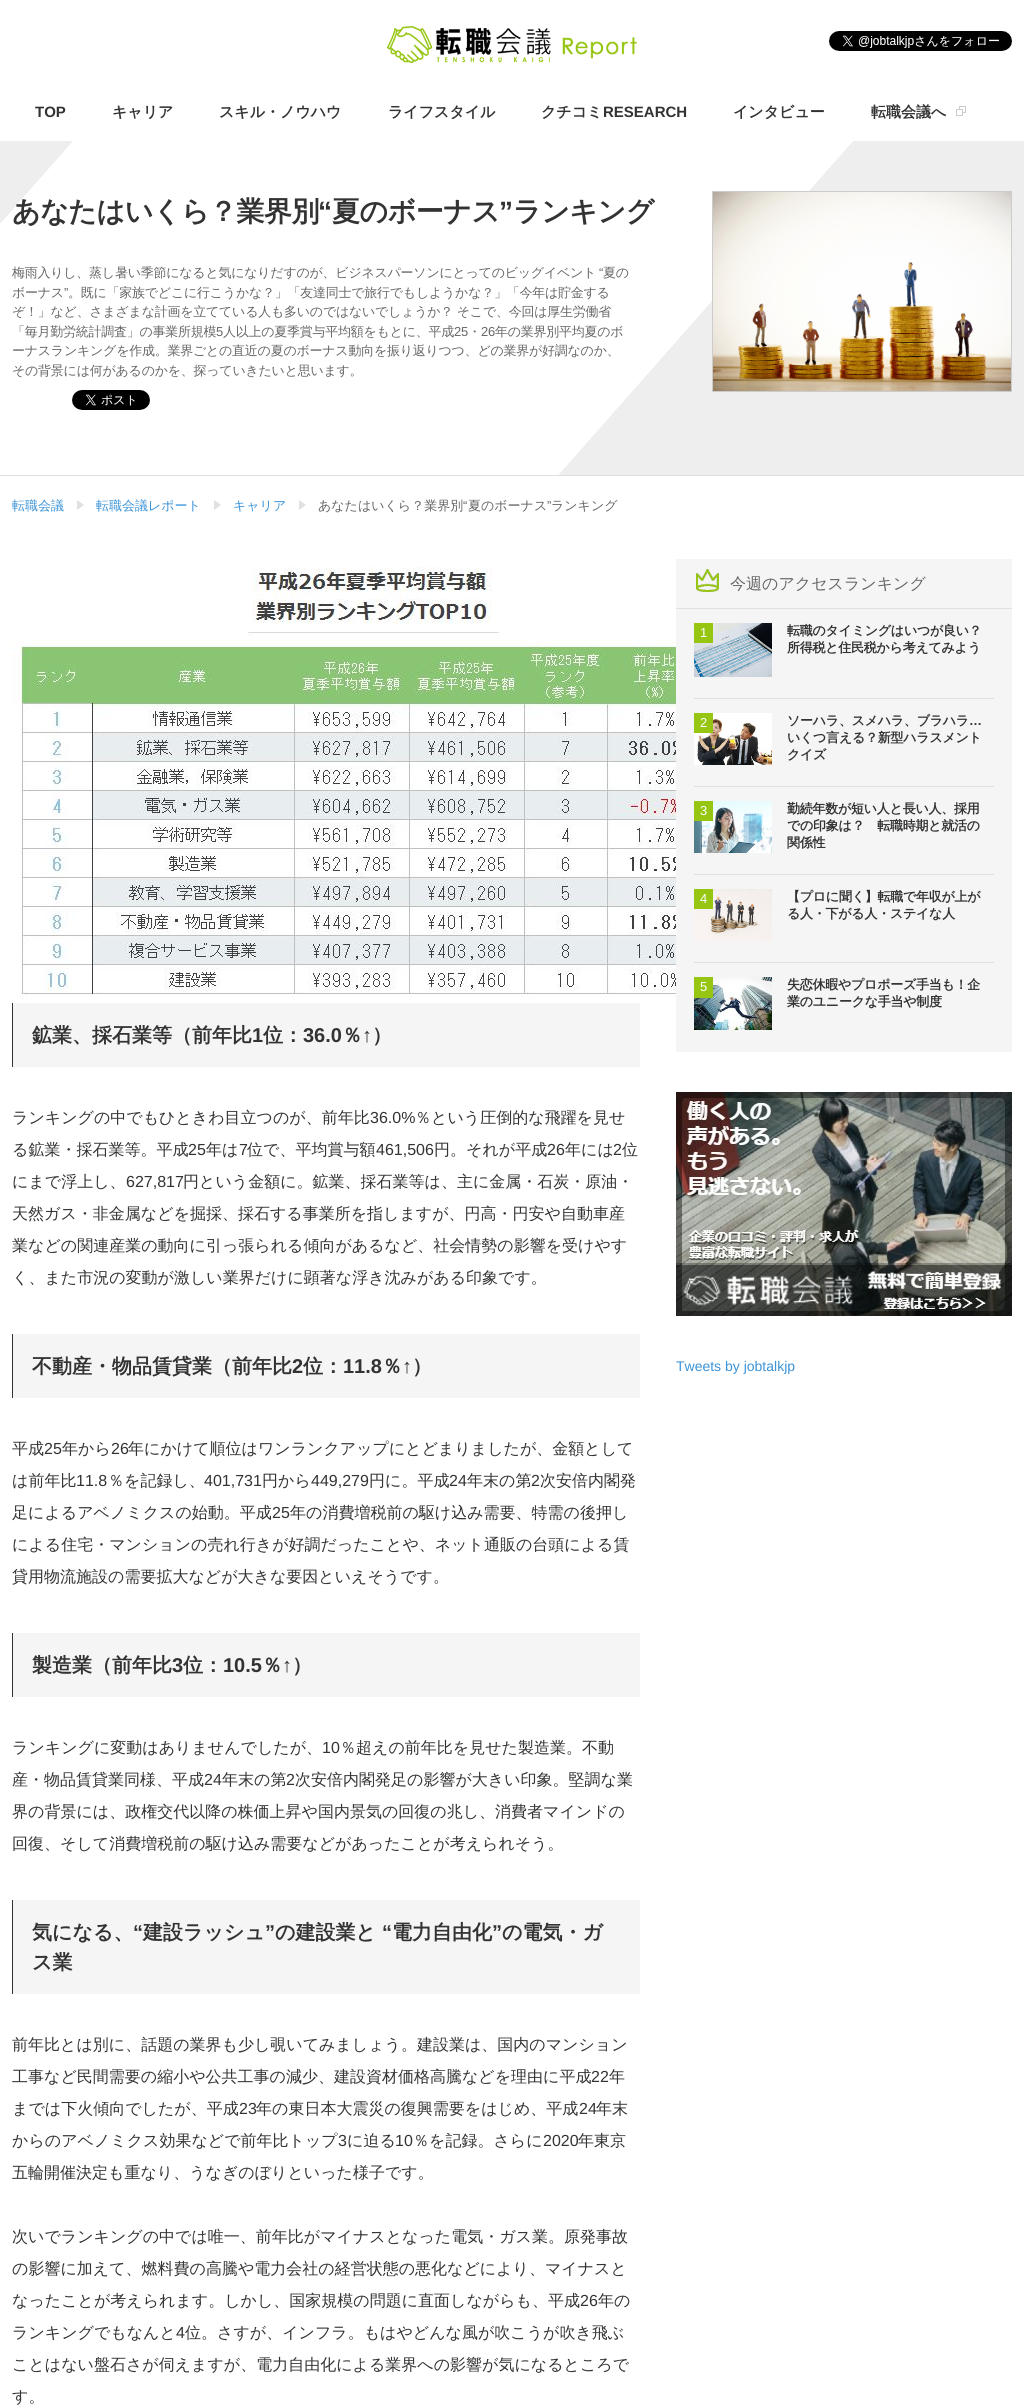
#include <cairo/cairo.h>
#include <math.h>
#include <stddef.h>


static void draw_spaced(cairo_t *cr, double x, double y, const char *s, double letter, double word) {
  cairo_move_to(cr, x, y);
  while (*s) {
    char ch[5] = {0};
    int n = 0;
    do ch[n++] = *s++; while ((*s & 0xC0) == 0x80);
    cairo_show_text(cr, ch);
    cairo_rel_move_to(cr, letter + word * (*ch == ' '), 0);
  }
}

static void draw_image(cairo_t *cr, const char *path, double x, double y, double w, double h) {
  cairo_surface_t *image = cairo_image_surface_create_from_png(path);
  cairo_save(cr);
  cairo_set_source_surface(cr, image, x, y);
  cairo_rectangle(cr, x, y, w, h);
  cairo_fill(cr);
  cairo_restore(cr);
  cairo_surface_destroy(image);
}

static void draw(cairo_t *cr) {
  cairo_set_source_rgb(cr, 1, 1, 1);
  cairo_paint(cr);
  draw_image(cr, "images/1.png", 387, 26, 250, 37);
  draw_image(cr, "images/2.png", 829, 31, 183, 20);
  draw_image(cr, "images/3.png", 956, 106, 10, 10);
  cairo_set_source_rgb(cr, 238 / 255.0, 238 / 255.0, 238 / 255.0);
  cairo_rectangle(cr, 853, 141, 171, 334);
  cairo_fill(cr);
  draw_image(cr, "images/4.png", 0, 141, 853, 334);
  cairo_set_source_rgb(cr, 222 / 255.0, 222 / 255.0, 222 / 255.0);
  cairo_rectangle(cr, 0, 475, 1024, 1);
  cairo_fill(cr);
  draw_image(cr, "images/5.png", 72, 390, 78, 20);
  cairo_rectangle(cr, 712.5, 191.5, 299, 200);
  cairo_set_source_rgb(cr, 204 / 255.0, 204 / 255.0, 204 / 255.0);
  cairo_set_line_width(cr, 1);
  cairo_stroke(cr);
  draw_image(cr, "images/6.png", 713, 192, 298, 199);
  cairo_set_source_rgb(cr, 224 / 255.0, 224 / 255.0, 224 / 255.0);
  cairo_new_path(cr);
  cairo_move_to(cr, 77, 510);
  cairo_line_to(cr, 77, 500);
  cairo_line_to(cr, 84, 505);
  cairo_close_path(cr);
  cairo_fill(cr);
  cairo_new_path(cr);
  cairo_move_to(cr, 214, 510);
  cairo_line_to(cr, 214, 500);
  cairo_line_to(cr, 221, 505);
  cairo_close_path(cr);
  cairo_fill(cr);
  cairo_new_path(cr);
  cairo_move_to(cr, 299, 510);
  cairo_line_to(cr, 299, 500);
  cairo_line_to(cr, 306, 505);
  cairo_close_path(cr);
  cairo_fill(cr);
  draw_image(cr, "images/7.png", 12, 567, 664, 432);
  cairo_set_source_rgb(cr, 245 / 255.0, 245 / 255.0, 245 / 255.0);
  cairo_rectangle(cr, 13, 1003, 627, 64);
  cairo_fill(cr);
  cairo_set_source_rgb(cr, 51 / 255.0, 51 / 255.0, 51 / 255.0);
  cairo_rectangle(cr, 12, 1003, 1, 64);
  cairo_fill(cr);
  cairo_set_source_rgb(cr, 245 / 255.0, 245 / 255.0, 245 / 255.0);
  cairo_rectangle(cr, 13, 1334, 627, 64);
  cairo_fill(cr);
  cairo_set_source_rgb(cr, 51 / 255.0, 51 / 255.0, 51 / 255.0);
  cairo_rectangle(cr, 12, 1334, 1, 64);
  cairo_fill(cr);
  cairo_set_source_rgb(cr, 245 / 255.0, 245 / 255.0, 245 / 255.0);
  cairo_rectangle(cr, 13, 1633, 627, 64);
  cairo_fill(cr);
  cairo_set_source_rgb(cr, 51 / 255.0, 51 / 255.0, 51 / 255.0);
  cairo_rectangle(cr, 12, 1633, 1, 64);
  cairo_fill(cr);
  cairo_set_source_rgb(cr, 245 / 255.0, 245 / 255.0, 245 / 255.0);
  cairo_rectangle(cr, 13, 1900, 627, 94);
  cairo_fill(cr);
  cairo_set_source_rgb(cr, 51 / 255.0, 51 / 255.0, 51 / 255.0);
  cairo_rectangle(cr, 12, 1900, 1, 94);
  cairo_fill(cr);
  cairo_set_source_rgb(cr, 245 / 255.0, 245 / 255.0, 245 / 255.0);
  cairo_rectangle(cr, 676, 559, 336, 49);
  cairo_fill(cr);
  draw_image(cr, "images/8.png", 696, 569, 23, 23);
  cairo_set_source_rgb(cr, 224 / 255.0, 224 / 255.0, 224 / 255.0);
  cairo_rectangle(cr, 676, 608, 336, 1);
  cairo_fill(cr);
  cairo_set_source_rgb(cr, 245 / 255.0, 245 / 255.0, 245 / 255.0);
  cairo_rectangle(cr, 676, 609, 336, 443);
  cairo_fill(cr);
  cairo_set_source_rgb(cr, 224 / 255.0, 224 / 255.0, 224 / 255.0);
  cairo_rectangle(cr, 694, 698, 300, 1);
  cairo_fill(cr);
  draw_image(cr, "images/9.png", 694, 623, 78, 54);
  cairo_set_source_rgb(cr, 150 / 255.0, 197 / 255.0, 18 / 255.0);
  cairo_rectangle(cr, 694, 623, 19, 20);
  cairo_fill(cr);
  cairo_set_source_rgb(cr, 224 / 255.0, 224 / 255.0, 224 / 255.0);
  cairo_rectangle(cr, 694, 786, 300, 1);
  cairo_fill(cr);
  draw_image(cr, "images/10.png", 694, 713, 78, 52);
  cairo_set_source_rgb(cr, 150 / 255.0, 197 / 255.0, 18 / 255.0);
  cairo_rectangle(cr, 694, 713, 19, 20);
  cairo_fill(cr);
  cairo_set_source_rgb(cr, 224 / 255.0, 224 / 255.0, 224 / 255.0);
  cairo_rectangle(cr, 694, 874, 300, 1);
  cairo_fill(cr);
  draw_image(cr, "images/11.png", 694, 801, 78, 52);
  cairo_set_source_rgb(cr, 150 / 255.0, 197 / 255.0, 18 / 255.0);
  cairo_rectangle(cr, 694, 801, 19, 20);
  cairo_fill(cr);
  cairo_set_source_rgb(cr, 224 / 255.0, 224 / 255.0, 224 / 255.0);
  cairo_rectangle(cr, 694, 962, 300, 1);
  cairo_fill(cr);
  draw_image(cr, "images/12.png", 694, 889, 78, 52);
  cairo_set_source_rgb(cr, 150 / 255.0, 197 / 255.0, 18 / 255.0);
  cairo_rectangle(cr, 694, 889, 19, 20);
  cairo_fill(cr);
  draw_image(cr, "images/13.png", 694, 977, 78, 53);
  cairo_rectangle(cr, 694, 977, 19, 21);
  cairo_fill(cr);
  draw_image(cr, "images/14.png", 676, 1092, 336, 224);
  cairo_select_font_face(cr, "Liberation Sans", CAIRO_FONT_SLANT_NORMAL, CAIRO_FONT_WEIGHT_BOLD);
  cairo_set_font_size(cr, 15);
  cairo_set_source_rgb(cr, 51 / 255.0, 51 / 255.0, 51 / 255.0);
  cairo_move_to(cr, 35, 117);
  cairo_show_text(cr, "TOP");
  cairo_select_font_face(cr, "WenQuanYi Zen Hei", CAIRO_FONT_SLANT_NORMAL, CAIRO_FONT_WEIGHT_BOLD);
  cairo_move_to(cr, 112, 117);
  cairo_show_text(cr, "キャリア");
  cairo_move_to(cr, 219, 117);
  cairo_show_text(cr, "スキル・ノウハウ");
  cairo_move_to(cr, 388, 117);
  cairo_show_text(cr, "ライフスタイル");
  cairo_move_to(cr, 541, 117);
  cairo_show_text(cr, "クチコミ");
  cairo_select_font_face(cr, "Liberation Sans", CAIRO_FONT_SLANT_NORMAL, CAIRO_FONT_WEIGHT_BOLD);
  cairo_move_to(cr, 603, 117);
  cairo_show_text(cr, "RESEARCH");
  cairo_select_font_face(cr, "WenQuanYi Zen Hei", CAIRO_FONT_SLANT_NORMAL, CAIRO_FONT_WEIGHT_BOLD);
  cairo_move_to(cr, 733, 117);
  cairo_show_text(cr, "インタビュー");
  cairo_move_to(cr, 871, 117);
  cairo_show_text(cr, "転職会議へ");
  cairo_set_font_size(cr, 28);
  draw_spaced(cr, 12, 221, "あなたはいくら？業界別", -0.5, 0);
  cairo_select_font_face(cr, "Liberation Sans", CAIRO_FONT_SLANT_NORMAL, CAIRO_FONT_WEIGHT_BOLD);
  draw_spaced(cr, 318, 221, "“", -0.5, 0);
  cairo_select_font_face(cr, "WenQuanYi Zen Hei", CAIRO_FONT_SLANT_NORMAL, CAIRO_FONT_WEIGHT_BOLD);
  draw_spaced(cr, 332, 221, "夏のボーナス", -0.5, 0);
  cairo_select_font_face(cr, "Liberation Sans", CAIRO_FONT_SLANT_NORMAL, CAIRO_FONT_WEIGHT_BOLD);
  draw_spaced(cr, 499, 221, "”", -0.5, 0);
  cairo_select_font_face(cr, "WenQuanYi Zen Hei", CAIRO_FONT_SLANT_NORMAL, CAIRO_FONT_WEIGHT_BOLD);
  draw_spaced(cr, 513, 221, "ランキング", -0.5, 0);
  cairo_select_font_face(cr, "WenQuanYi Zen Hei Medium", CAIRO_FONT_SLANT_NORMAL, CAIRO_FONT_WEIGHT_NORMAL);
  cairo_set_font_size(cr, 13);
  cairo_set_source_rgb(cr, 102 / 255.0, 102 / 255.0, 102 / 255.0);
  draw_spaced(cr, 12, 277, "梅雨入りし、蒸し暑い季節になると気になりだすのが、ビジネスパーソンにとってのビッグイベント", -0.25, 0);
  cairo_select_font_face(cr, "Liberation Sans", CAIRO_FONT_SLANT_NORMAL, CAIRO_FONT_WEIGHT_NORMAL);
  draw_spaced(cr, 599, 277, "“", -0.25, 0);
  cairo_select_font_face(cr, "WenQuanYi Zen Hei Medium", CAIRO_FONT_SLANT_NORMAL, CAIRO_FONT_WEIGHT_NORMAL);
  draw_spaced(cr, 603, 277, "夏の", -0.25, 0);
  draw_spaced(cr, 12, 297, "ボーナス", -0.25, 0);
  cairo_select_font_face(cr, "Liberation Sans", CAIRO_FONT_SLANT_NORMAL, CAIRO_FONT_WEIGHT_NORMAL);
  draw_spaced(cr, 64, 297, "”", -0.25, 0);
  cairo_select_font_face(cr, "WenQuanYi Zen Hei Medium", CAIRO_FONT_SLANT_NORMAL, CAIRO_FONT_WEIGHT_NORMAL);
  draw_spaced(cr, 68, 297, "。既に「家族でどこに行こうかな？」「友達同士で旅行でもしようかな？」「今年は貯金する", -0.25, 0);
  draw_spaced(cr, 12, 316, "ぞ！」など、さまざまな計画を立てている人も多いのではないでしょうか？ そこで、今回は厚生労働省", -0.25, 0);
  draw_spaced(cr, 12, 336, "「毎月勤労統計調査」の事業所規模", -0.25, 0);
  cairo_select_font_face(cr, "Liberation Sans", CAIRO_FONT_SLANT_NORMAL, CAIRO_FONT_WEIGHT_NORMAL);
  draw_spaced(cr, 216, 336, "5", -0.25, 0);
  cairo_select_font_face(cr, "WenQuanYi Zen Hei Medium", CAIRO_FONT_SLANT_NORMAL, CAIRO_FONT_WEIGHT_NORMAL);
  draw_spaced(cr, 223, 336, "人以上の夏季賞与平均額をもとに、平成", -0.25, 0);
  cairo_select_font_face(cr, "Liberation Sans", CAIRO_FONT_SLANT_NORMAL, CAIRO_FONT_WEIGHT_NORMAL);
  draw_spaced(cr, 454, 336, "25", -0.25, 0);
  cairo_select_font_face(cr, "WenQuanYi Zen Hei Medium", CAIRO_FONT_SLANT_NORMAL, CAIRO_FONT_WEIGHT_NORMAL);
  draw_spaced(cr, 468, 336, "・", -0.25, 0);
  cairo_select_font_face(cr, "Liberation Sans", CAIRO_FONT_SLANT_NORMAL, CAIRO_FONT_WEIGHT_NORMAL);
  draw_spaced(cr, 481, 336, "26", -0.25, 0);
  cairo_select_font_face(cr, "WenQuanYi Zen Hei Medium", CAIRO_FONT_SLANT_NORMAL, CAIRO_FONT_WEIGHT_NORMAL);
  draw_spaced(cr, 495, 336, "年の業界別平均夏のボ", -0.25, 0);
  draw_spaced(cr, 12, 355, "ーナスランキングを作成。業界ごとの直近の夏のボーナス動向を振り返りつつ、どの業界が好調なのか、", -0.25, 0);
  draw_spaced(cr, 12, 375, "その背景には何があるのかを、探っていきたいと思います。", -0.25, 0);
  cairo_set_source_rgb(cr, 59 / 255.0, 148 / 255.0, 217 / 255.0);
  cairo_move_to(cr, 12, 510);
  cairo_show_text(cr, "転職会議");
  cairo_move_to(cr, 96, 510);
  cairo_show_text(cr, "転職会議レポート");
  cairo_move_to(cr, 233, 510);
  cairo_show_text(cr, "キャリア");
  cairo_set_source_rgb(cr, 102 / 255.0, 102 / 255.0, 102 / 255.0);
  cairo_move_to(cr, 318, 510);
  cairo_show_text(cr, "あなたはいくら？業界別");
  cairo_select_font_face(cr, "Liberation Sans", CAIRO_FONT_SLANT_NORMAL, CAIRO_FONT_WEIGHT_NORMAL);
  cairo_move_to(cr, 463, 510);
  cairo_show_text(cr, "“");
  cairo_select_font_face(cr, "WenQuanYi Zen Hei Medium", CAIRO_FONT_SLANT_NORMAL, CAIRO_FONT_WEIGHT_NORMAL);
  cairo_move_to(cr, 468, 510);
  cairo_show_text(cr, "夏のボーナス");
  cairo_select_font_face(cr, "Liberation Sans", CAIRO_FONT_SLANT_NORMAL, CAIRO_FONT_WEIGHT_NORMAL);
  cairo_move_to(cr, 547, 510);
  cairo_show_text(cr, "”");
  cairo_select_font_face(cr, "WenQuanYi Zen Hei Medium", CAIRO_FONT_SLANT_NORMAL, CAIRO_FONT_WEIGHT_NORMAL);
  cairo_move_to(cr, 551, 510);
  cairo_show_text(cr, "ランキング");
  cairo_select_font_face(cr, "WenQuanYi Zen Hei", CAIRO_FONT_SLANT_NORMAL, CAIRO_FONT_WEIGHT_BOLD);
  cairo_set_font_size(cr, 20);
  cairo_set_source_rgb(cr, 51 / 255.0, 51 / 255.0, 51 / 255.0);
  cairo_move_to(cr, 32, 1042);
  cairo_show_text(cr, "鉱業、採石業等（前年比");
  cairo_select_font_face(cr, "Liberation Sans", CAIRO_FONT_SLANT_NORMAL, CAIRO_FONT_WEIGHT_BOLD);
  cairo_move_to(cr, 252, 1042);
  cairo_show_text(cr, "1");
  cairo_select_font_face(cr, "WenQuanYi Zen Hei", CAIRO_FONT_SLANT_NORMAL, CAIRO_FONT_WEIGHT_BOLD);
  cairo_move_to(cr, 263, 1042);
  cairo_show_text(cr, "位：");
  cairo_select_font_face(cr, "Liberation Sans", CAIRO_FONT_SLANT_NORMAL, CAIRO_FONT_WEIGHT_BOLD);
  cairo_move_to(cr, 303, 1042);
  cairo_show_text(cr, "36.0");
  cairo_select_font_face(cr, "WenQuanYi Zen Hei", CAIRO_FONT_SLANT_NORMAL, CAIRO_FONT_WEIGHT_BOLD);
  cairo_move_to(cr, 342, 1042);
  cairo_show_text(cr, "％");
  cairo_select_font_face(cr, "Liberation Sans", CAIRO_FONT_SLANT_NORMAL, CAIRO_FONT_WEIGHT_BOLD);
  cairo_move_to(cr, 362, 1042);
  cairo_show_text(cr, "↑");
  cairo_select_font_face(cr, "WenQuanYi Zen Hei", CAIRO_FONT_SLANT_NORMAL, CAIRO_FONT_WEIGHT_BOLD);
  cairo_move_to(cr, 372, 1042);
  cairo_show_text(cr, "）");
  cairo_select_font_face(cr, "WenQuanYi Zen Hei Medium", CAIRO_FONT_SLANT_NORMAL, CAIRO_FONT_WEIGHT_NORMAL);
  cairo_set_font_size(cr, 16);
  cairo_move_to(cr, 12, 1123);
  cairo_show_text(cr, "ランキングの中でもひときわ目立つのが、前年比");
  cairo_select_font_face(cr, "Liberation Sans", CAIRO_FONT_SLANT_NORMAL, CAIRO_FONT_WEIGHT_NORMAL);
  cairo_move_to(cr, 370, 1123);
  cairo_show_text(cr, "36.0%");
  cairo_select_font_face(cr, "WenQuanYi Zen Hei Medium", CAIRO_FONT_SLANT_NORMAL, CAIRO_FONT_WEIGHT_NORMAL);
  cairo_move_to(cr, 415, 1123);
  cairo_show_text(cr, "％という圧倒的な飛躍を見せ");
  cairo_move_to(cr, 12, 1155);
  cairo_show_text(cr, "る鉱業・採石業等。平成");
  cairo_select_font_face(cr, "Liberation Sans", CAIRO_FONT_SLANT_NORMAL, CAIRO_FONT_WEIGHT_NORMAL);
  cairo_move_to(cr, 188, 1155);
  cairo_show_text(cr, "25");
  cairo_select_font_face(cr, "WenQuanYi Zen Hei Medium", CAIRO_FONT_SLANT_NORMAL, CAIRO_FONT_WEIGHT_NORMAL);
  cairo_move_to(cr, 206, 1155);
  cairo_show_text(cr, "年は");
  cairo_select_font_face(cr, "Liberation Sans", CAIRO_FONT_SLANT_NORMAL, CAIRO_FONT_WEIGHT_NORMAL);
  cairo_move_to(cr, 239, 1155);
  cairo_show_text(cr, "7");
  cairo_select_font_face(cr, "WenQuanYi Zen Hei Medium", CAIRO_FONT_SLANT_NORMAL, CAIRO_FONT_WEIGHT_NORMAL);
  cairo_move_to(cr, 247, 1155);
  cairo_show_text(cr, "位で、平均賞与額");
  cairo_select_font_face(cr, "Liberation Sans", CAIRO_FONT_SLANT_NORMAL, CAIRO_FONT_WEIGHT_NORMAL);
  cairo_move_to(cr, 376, 1155);
  cairo_show_text(cr, "461,506");
  cairo_select_font_face(cr, "WenQuanYi Zen Hei Medium", CAIRO_FONT_SLANT_NORMAL, CAIRO_FONT_WEIGHT_NORMAL);
  cairo_move_to(cr, 434, 1155);
  cairo_show_text(cr, "円。それが平成");
  cairo_select_font_face(cr, "Liberation Sans", CAIRO_FONT_SLANT_NORMAL, CAIRO_FONT_WEIGHT_NORMAL);
  cairo_move_to(cr, 547, 1155);
  cairo_show_text(cr, "26");
  cairo_select_font_face(cr, "WenQuanYi Zen Hei Medium", CAIRO_FONT_SLANT_NORMAL, CAIRO_FONT_WEIGHT_NORMAL);
  cairo_move_to(cr, 565, 1155);
  cairo_show_text(cr, "年には");
  cairo_select_font_face(cr, "Liberation Sans", CAIRO_FONT_SLANT_NORMAL, CAIRO_FONT_WEIGHT_NORMAL);
  cairo_move_to(cr, 613, 1155);
  cairo_show_text(cr, "2");
  cairo_select_font_face(cr, "WenQuanYi Zen Hei Medium", CAIRO_FONT_SLANT_NORMAL, CAIRO_FONT_WEIGHT_NORMAL);
  cairo_move_to(cr, 622, 1155);
  cairo_show_text(cr, "位");
  cairo_move_to(cr, 12, 1187);
  cairo_show_text(cr, "にまで浮上し、");
  cairo_select_font_face(cr, "Liberation Sans", CAIRO_FONT_SLANT_NORMAL, CAIRO_FONT_WEIGHT_NORMAL);
  cairo_move_to(cr, 126, 1187);
  cairo_show_text(cr, "627,817");
  cairo_select_font_face(cr, "WenQuanYi Zen Hei Medium", CAIRO_FONT_SLANT_NORMAL, CAIRO_FONT_WEIGHT_NORMAL);
  cairo_move_to(cr, 183, 1187);
  cairo_show_text(cr, "円という金額に。鉱業、採石業等は、主に金属・石炭・原油・");
  cairo_move_to(cr, 12, 1219);
  cairo_show_text(cr, "天然ガス・非金属などを掘採、採石する事業所を指しますが、円高・円安や自動車産");
  cairo_move_to(cr, 12, 1251);
  cairo_show_text(cr, "業などの関連産業の動向に引っ張られる傾向があるなど、社会情勢の影響を受けやす");
  cairo_move_to(cr, 12, 1283);
  cairo_show_text(cr, "く、また市況の変動が激しい業界だけに顕著な浮き沈みがある印象です。");
  cairo_select_font_face(cr, "WenQuanYi Zen Hei", CAIRO_FONT_SLANT_NORMAL, CAIRO_FONT_WEIGHT_BOLD);
  cairo_set_font_size(cr, 20);
  cairo_move_to(cr, 32, 1373);
  cairo_show_text(cr, "不動産・物品賃貸業（前年比");
  cairo_select_font_face(cr, "Liberation Sans", CAIRO_FONT_SLANT_NORMAL, CAIRO_FONT_WEIGHT_BOLD);
  cairo_move_to(cr, 292, 1373);
  cairo_show_text(cr, "2");
  cairo_select_font_face(cr, "WenQuanYi Zen Hei", CAIRO_FONT_SLANT_NORMAL, CAIRO_FONT_WEIGHT_BOLD);
  cairo_move_to(cr, 303, 1373);
  cairo_show_text(cr, "位：");
  cairo_select_font_face(cr, "Liberation Sans", CAIRO_FONT_SLANT_NORMAL, CAIRO_FONT_WEIGHT_BOLD);
  cairo_move_to(cr, 343, 1373);
  cairo_show_text(cr, "11.8");
  cairo_select_font_face(cr, "WenQuanYi Zen Hei", CAIRO_FONT_SLANT_NORMAL, CAIRO_FONT_WEIGHT_BOLD);
  cairo_move_to(cr, 382, 1373);
  cairo_show_text(cr, "％");
  cairo_select_font_face(cr, "Liberation Sans", CAIRO_FONT_SLANT_NORMAL, CAIRO_FONT_WEIGHT_BOLD);
  cairo_move_to(cr, 402, 1373);
  cairo_show_text(cr, "↑");
  cairo_select_font_face(cr, "WenQuanYi Zen Hei", CAIRO_FONT_SLANT_NORMAL, CAIRO_FONT_WEIGHT_BOLD);
  cairo_move_to(cr, 412, 1373);
  cairo_show_text(cr, "）");
  cairo_select_font_face(cr, "WenQuanYi Zen Hei Medium", CAIRO_FONT_SLANT_NORMAL, CAIRO_FONT_WEIGHT_NORMAL);
  cairo_set_font_size(cr, 16);
  cairo_move_to(cr, 12, 1454);
  cairo_show_text(cr, "平成");
  cairo_select_font_face(cr, "Liberation Sans", CAIRO_FONT_SLANT_NORMAL, CAIRO_FONT_WEIGHT_NORMAL);
  cairo_move_to(cr, 44, 1454);
  cairo_show_text(cr, "25");
  cairo_select_font_face(cr, "WenQuanYi Zen Hei Medium", CAIRO_FONT_SLANT_NORMAL, CAIRO_FONT_WEIGHT_NORMAL);
  cairo_move_to(cr, 62, 1454);
  cairo_show_text(cr, "年から");
  cairo_select_font_face(cr, "Liberation Sans", CAIRO_FONT_SLANT_NORMAL, CAIRO_FONT_WEIGHT_NORMAL);
  cairo_move_to(cr, 111, 1454);
  cairo_show_text(cr, "26");
  cairo_select_font_face(cr, "WenQuanYi Zen Hei Medium", CAIRO_FONT_SLANT_NORMAL, CAIRO_FONT_WEIGHT_NORMAL);
  cairo_move_to(cr, 128, 1454);
  cairo_show_text(cr, "年にかけて順位はワンランクアップにとどまりましたが、金額として");
  cairo_move_to(cr, 12, 1486);
  cairo_show_text(cr, "は前年比");
  cairo_select_font_face(cr, "Liberation Sans", CAIRO_FONT_SLANT_NORMAL, CAIRO_FONT_WEIGHT_NORMAL);
  cairo_move_to(cr, 76, 1486);
  cairo_show_text(cr, "11.8");
  cairo_select_font_face(cr, "WenQuanYi Zen Hei Medium", CAIRO_FONT_SLANT_NORMAL, CAIRO_FONT_WEIGHT_NORMAL);
  cairo_move_to(cr, 108, 1486);
  cairo_show_text(cr, "％を記録し、");
  cairo_select_font_face(cr, "Liberation Sans", CAIRO_FONT_SLANT_NORMAL, CAIRO_FONT_WEIGHT_NORMAL);
  cairo_move_to(cr, 204, 1486);
  cairo_show_text(cr, "401,731");
  cairo_select_font_face(cr, "WenQuanYi Zen Hei Medium", CAIRO_FONT_SLANT_NORMAL, CAIRO_FONT_WEIGHT_NORMAL);
  cairo_move_to(cr, 262, 1486);
  cairo_show_text(cr, "円から");
  cairo_select_font_face(cr, "Liberation Sans", CAIRO_FONT_SLANT_NORMAL, CAIRO_FONT_WEIGHT_NORMAL);
  cairo_move_to(cr, 311, 1486);
  cairo_show_text(cr, "449,279");
  cairo_select_font_face(cr, "WenQuanYi Zen Hei Medium", CAIRO_FONT_SLANT_NORMAL, CAIRO_FONT_WEIGHT_NORMAL);
  cairo_move_to(cr, 369, 1486);
  cairo_show_text(cr, "円に。平成");
  cairo_select_font_face(cr, "Liberation Sans", CAIRO_FONT_SLANT_NORMAL, CAIRO_FONT_WEIGHT_NORMAL);
  cairo_move_to(cr, 449, 1486);
  cairo_show_text(cr, "24");
  cairo_select_font_face(cr, "WenQuanYi Zen Hei Medium", CAIRO_FONT_SLANT_NORMAL, CAIRO_FONT_WEIGHT_NORMAL);
  cairo_move_to(cr, 467, 1486);
  cairo_show_text(cr, "年末の第");
  cairo_select_font_face(cr, "Liberation Sans", CAIRO_FONT_SLANT_NORMAL, CAIRO_FONT_WEIGHT_NORMAL);
  cairo_move_to(cr, 531, 1486);
  cairo_show_text(cr, "2");
  cairo_select_font_face(cr, "WenQuanYi Zen Hei Medium", CAIRO_FONT_SLANT_NORMAL, CAIRO_FONT_WEIGHT_NORMAL);
  cairo_move_to(cr, 540, 1486);
  cairo_show_text(cr, "次安倍内閣発");
  cairo_move_to(cr, 12, 1518);
  cairo_show_text(cr, "足によるアベノミクスの始動。平成");
  cairo_select_font_face(cr, "Liberation Sans", CAIRO_FONT_SLANT_NORMAL, CAIRO_FONT_WEIGHT_NORMAL);
  cairo_move_to(cr, 272, 1518);
  cairo_show_text(cr, "25");
  cairo_select_font_face(cr, "WenQuanYi Zen Hei Medium", CAIRO_FONT_SLANT_NORMAL, CAIRO_FONT_WEIGHT_NORMAL);
  cairo_move_to(cr, 290, 1518);
  cairo_show_text(cr, "年の消費増税前の駆け込み需要、特需の後押し");
  cairo_move_to(cr, 12, 1550);
  cairo_show_text(cr, "による住宅・マンションの売れ行きが好調だったことや、ネット通販の台頭による賃");
  cairo_move_to(cr, 12, 1582);
  cairo_show_text(cr, "貸用物流施設の需要拡大などが大きな要因といえそうです。");
  cairo_select_font_face(cr, "WenQuanYi Zen Hei", CAIRO_FONT_SLANT_NORMAL, CAIRO_FONT_WEIGHT_BOLD);
  cairo_set_font_size(cr, 20);
  cairo_move_to(cr, 32, 1672);
  cairo_show_text(cr, "製造業（前年比");
  cairo_select_font_face(cr, "Liberation Sans", CAIRO_FONT_SLANT_NORMAL, CAIRO_FONT_WEIGHT_BOLD);
  cairo_move_to(cr, 172, 1672);
  cairo_show_text(cr, "3");
  cairo_select_font_face(cr, "WenQuanYi Zen Hei", CAIRO_FONT_SLANT_NORMAL, CAIRO_FONT_WEIGHT_BOLD);
  cairo_move_to(cr, 183, 1672);
  cairo_show_text(cr, "位：");
  cairo_select_font_face(cr, "Liberation Sans", CAIRO_FONT_SLANT_NORMAL, CAIRO_FONT_WEIGHT_BOLD);
  cairo_move_to(cr, 223, 1672);
  cairo_show_text(cr, "10.5");
  cairo_select_font_face(cr, "WenQuanYi Zen Hei", CAIRO_FONT_SLANT_NORMAL, CAIRO_FONT_WEIGHT_BOLD);
  cairo_move_to(cr, 262, 1672);
  cairo_show_text(cr, "％");
  cairo_select_font_face(cr, "Liberation Sans", CAIRO_FONT_SLANT_NORMAL, CAIRO_FONT_WEIGHT_BOLD);
  cairo_move_to(cr, 282, 1672);
  cairo_show_text(cr, "↑");
  cairo_select_font_face(cr, "WenQuanYi Zen Hei", CAIRO_FONT_SLANT_NORMAL, CAIRO_FONT_WEIGHT_BOLD);
  cairo_move_to(cr, 292, 1672);
  cairo_show_text(cr, "）");
  cairo_select_font_face(cr, "WenQuanYi Zen Hei Medium", CAIRO_FONT_SLANT_NORMAL, CAIRO_FONT_WEIGHT_NORMAL);
  cairo_set_font_size(cr, 16);
  cairo_move_to(cr, 12, 1753);
  cairo_show_text(cr, "ランキングに変動はありませんでしたが、");
  cairo_select_font_face(cr, "Liberation Sans", CAIRO_FONT_SLANT_NORMAL, CAIRO_FONT_WEIGHT_NORMAL);
  cairo_move_to(cr, 322, 1753);
  cairo_show_text(cr, "10");
  cairo_select_font_face(cr, "WenQuanYi Zen Hei Medium", CAIRO_FONT_SLANT_NORMAL, CAIRO_FONT_WEIGHT_NORMAL);
  cairo_move_to(cr, 340, 1753);
  cairo_show_text(cr, "％超えの前年比を見せた製造業。不動");
  cairo_move_to(cr, 12, 1785);
  cairo_show_text(cr, "産・物品賃貸業同様、平成");
  cairo_select_font_face(cr, "Liberation Sans", CAIRO_FONT_SLANT_NORMAL, CAIRO_FONT_WEIGHT_NORMAL);
  cairo_move_to(cr, 204, 1785);
  cairo_show_text(cr, "24");
  cairo_select_font_face(cr, "WenQuanYi Zen Hei Medium", CAIRO_FONT_SLANT_NORMAL, CAIRO_FONT_WEIGHT_NORMAL);
  cairo_move_to(cr, 222, 1785);
  cairo_show_text(cr, "年末の第");
  cairo_select_font_face(cr, "Liberation Sans", CAIRO_FONT_SLANT_NORMAL, CAIRO_FONT_WEIGHT_NORMAL);
  cairo_move_to(cr, 286, 1785);
  cairo_show_text(cr, "2");
  cairo_select_font_face(cr, "WenQuanYi Zen Hei Medium", CAIRO_FONT_SLANT_NORMAL, CAIRO_FONT_WEIGHT_NORMAL);
  cairo_move_to(cr, 295, 1785);
  cairo_show_text(cr, "次安倍内閣発足の影響が大きい印象。堅調な業");
  cairo_move_to(cr, 12, 1817);
  cairo_show_text(cr, "界の背景には、政権交代以降の株価上昇や国内景気の回復の兆し、消費者マインドの");
  cairo_move_to(cr, 12, 1849);
  cairo_show_text(cr, "回復、そして消費増税前の駆け込み需要などがあったことが考えられそう。");
  cairo_select_font_face(cr, "WenQuanYi Zen Hei", CAIRO_FONT_SLANT_NORMAL, CAIRO_FONT_WEIGHT_BOLD);
  cairo_set_font_size(cr, 20);
  cairo_move_to(cr, 32, 1939);
  cairo_show_text(cr, "気になる、");
  cairo_select_font_face(cr, "Liberation Sans", CAIRO_FONT_SLANT_NORMAL, CAIRO_FONT_WEIGHT_BOLD);
  cairo_move_to(cr, 133, 1939);
  cairo_show_text(cr, "“");
  cairo_select_font_face(cr, "WenQuanYi Zen Hei", CAIRO_FONT_SLANT_NORMAL, CAIRO_FONT_WEIGHT_BOLD);
  cairo_move_to(cr, 143, 1939);
  cairo_show_text(cr, "建設ラッシュ");
  cairo_select_font_face(cr, "Liberation Sans", CAIRO_FONT_SLANT_NORMAL, CAIRO_FONT_WEIGHT_BOLD);
  cairo_move_to(cr, 265, 1939);
  cairo_show_text(cr, "”");
  cairo_select_font_face(cr, "WenQuanYi Zen Hei", CAIRO_FONT_SLANT_NORMAL, CAIRO_FONT_WEIGHT_BOLD);
  cairo_move_to(cr, 275, 1939);
  cairo_show_text(cr, "の建設業と");
  cairo_select_font_face(cr, "Liberation Sans", CAIRO_FONT_SLANT_NORMAL, CAIRO_FONT_WEIGHT_BOLD);
  cairo_move_to(cr, 382, 1939);
  cairo_show_text(cr, "“");
  cairo_select_font_face(cr, "WenQuanYi Zen Hei", CAIRO_FONT_SLANT_NORMAL, CAIRO_FONT_WEIGHT_BOLD);
  cairo_move_to(cr, 392, 1939);
  cairo_show_text(cr, "電力自由化");
  cairo_select_font_face(cr, "Liberation Sans", CAIRO_FONT_SLANT_NORMAL, CAIRO_FONT_WEIGHT_BOLD);
  cairo_move_to(cr, 492, 1939);
  cairo_show_text(cr, "”");
  cairo_select_font_face(cr, "WenQuanYi Zen Hei", CAIRO_FONT_SLANT_NORMAL, CAIRO_FONT_WEIGHT_BOLD);
  cairo_move_to(cr, 502, 1939);
  cairo_show_text(cr, "の電気・ガ");
  cairo_move_to(cr, 32, 1969);
  cairo_show_text(cr, "ス業");
  cairo_select_font_face(cr, "WenQuanYi Zen Hei Medium", CAIRO_FONT_SLANT_NORMAL, CAIRO_FONT_WEIGHT_NORMAL);
  cairo_set_font_size(cr, 16);
  cairo_move_to(cr, 12, 2050);
  cairo_show_text(cr, "前年比とは別に、話題の業界も少し覗いてみましょう。建設業は、国内のマンション");
  cairo_move_to(cr, 12, 2082);
  cairo_show_text(cr, "工事など民間需要の縮小や公共工事の減少、建設資材価格高騰などを理由に平成");
  cairo_select_font_face(cr, "Liberation Sans", CAIRO_FONT_SLANT_NORMAL, CAIRO_FONT_WEIGHT_NORMAL);
  cairo_move_to(cr, 591, 2082);
  cairo_show_text(cr, "22");
  cairo_select_font_face(cr, "WenQuanYi Zen Hei Medium", CAIRO_FONT_SLANT_NORMAL, CAIRO_FONT_WEIGHT_NORMAL);
  cairo_move_to(cr, 609, 2082);
  cairo_show_text(cr, "年");
  cairo_move_to(cr, 12, 2114);
  cairo_show_text(cr, "までは下火傾向でしたが、平成");
  cairo_select_font_face(cr, "Liberation Sans", CAIRO_FONT_SLANT_NORMAL, CAIRO_FONT_WEIGHT_NORMAL);
  cairo_move_to(cr, 239, 2114);
  cairo_show_text(cr, "23");
  cairo_select_font_face(cr, "WenQuanYi Zen Hei Medium", CAIRO_FONT_SLANT_NORMAL, CAIRO_FONT_WEIGHT_NORMAL);
  cairo_move_to(cr, 256, 2114);
  cairo_show_text(cr, "年の東日本大震災の復興需要をはじめ、平成");
  cairo_select_font_face(cr, "Liberation Sans", CAIRO_FONT_SLANT_NORMAL, CAIRO_FONT_WEIGHT_NORMAL);
  cairo_move_to(cr, 579, 2114);
  cairo_show_text(cr, "24");
  cairo_select_font_face(cr, "WenQuanYi Zen Hei Medium", CAIRO_FONT_SLANT_NORMAL, CAIRO_FONT_WEIGHT_NORMAL);
  cairo_move_to(cr, 596, 2114);
  cairo_show_text(cr, "年末");
  cairo_move_to(cr, 12, 2146);
  cairo_show_text(cr, "からのアベノミクス効果などで前年比トップ");
  cairo_select_font_face(cr, "Liberation Sans", CAIRO_FONT_SLANT_NORMAL, CAIRO_FONT_WEIGHT_NORMAL);
  cairo_move_to(cr, 338, 2146);
  cairo_show_text(cr, "3");
  cairo_select_font_face(cr, "WenQuanYi Zen Hei Medium", CAIRO_FONT_SLANT_NORMAL, CAIRO_FONT_WEIGHT_NORMAL);
  cairo_move_to(cr, 347, 2146);
  cairo_show_text(cr, "に迫る");
  cairo_select_font_face(cr, "Liberation Sans", CAIRO_FONT_SLANT_NORMAL, CAIRO_FONT_WEIGHT_NORMAL);
  cairo_move_to(cr, 395, 2146);
  cairo_show_text(cr, "10");
  cairo_select_font_face(cr, "WenQuanYi Zen Hei Medium", CAIRO_FONT_SLANT_NORMAL, CAIRO_FONT_WEIGHT_NORMAL);
  cairo_move_to(cr, 413, 2146);
  cairo_show_text(cr, "％を記録。さらに");
  cairo_select_font_face(cr, "Liberation Sans", CAIRO_FONT_SLANT_NORMAL, CAIRO_FONT_WEIGHT_NORMAL);
  cairo_move_to(cr, 543, 2146);
  cairo_show_text(cr, "2020");
  cairo_select_font_face(cr, "WenQuanYi Zen Hei Medium", CAIRO_FONT_SLANT_NORMAL, CAIRO_FONT_WEIGHT_NORMAL);
  cairo_move_to(cr, 578, 2146);
  cairo_show_text(cr, "年東京");
  cairo_move_to(cr, 12, 2178);
  cairo_show_text(cr, "五輪開催決定も重なり、うなぎのぼりといった様子です。");
  cairo_move_to(cr, 12, 2242);
  cairo_show_text(cr, "次いでランキングの中では唯一、前年比がマイナスとなった電気・ガス業。原発事故");
  cairo_move_to(cr, 12, 2274);
  cairo_show_text(cr, "の影響に加えて、燃料費の高騰や電力会社の経営状態の悪化などにより、マイナスと");
  cairo_move_to(cr, 12, 2306);
  cairo_show_text(cr, "なったことが考えられます。しかし、国家規模の問題に直面しながらも、平成");
  cairo_select_font_face(cr, "Liberation Sans", CAIRO_FONT_SLANT_NORMAL, CAIRO_FONT_WEIGHT_NORMAL);
  cairo_move_to(cr, 580, 2306);
  cairo_show_text(cr, "26");
  cairo_select_font_face(cr, "WenQuanYi Zen Hei Medium", CAIRO_FONT_SLANT_NORMAL, CAIRO_FONT_WEIGHT_NORMAL);
  cairo_move_to(cr, 598, 2306);
  cairo_show_text(cr, "年の");
  cairo_move_to(cr, 12, 2338);
  cairo_show_text(cr, "ランキングでもなんと");
  cairo_select_font_face(cr, "Liberation Sans", CAIRO_FONT_SLANT_NORMAL, CAIRO_FONT_WEIGHT_NORMAL);
  cairo_move_to(cr, 176, 2338);
  cairo_show_text(cr, "4");
  cairo_select_font_face(cr, "WenQuanYi Zen Hei Medium", CAIRO_FONT_SLANT_NORMAL, CAIRO_FONT_WEIGHT_NORMAL);
  cairo_move_to(cr, 185, 2338);
  cairo_show_text(cr, "位。さすが、インフラ。もはやどんな風が吹こうが吹き飛ぶ");
  cairo_move_to(cr, 12, 2370);
  cairo_show_text(cr, "ことはない盤石さが伺えますが、電力自由化による業界への影響が気になるところで");
  cairo_move_to(cr, 12, 2402);
  cairo_show_text(cr, "す。");
  cairo_set_source_rgb(cr, 102 / 255.0, 102 / 255.0, 102 / 255.0);
  cairo_move_to(cr, 730, 589);
  cairo_show_text(cr, "今週のアクセスランキング");
  cairo_select_font_face(cr, "Liberation Sans", CAIRO_FONT_SLANT_NORMAL, CAIRO_FONT_WEIGHT_NORMAL);
  cairo_set_font_size(cr, 13);
  cairo_set_source_rgb(cr, 1, 1, 1);
  cairo_move_to(cr, 700, 637);
  cairo_show_text(cr, "1");
  cairo_select_font_face(cr, "WenQuanYi Zen Hei", CAIRO_FONT_SLANT_NORMAL, CAIRO_FONT_WEIGHT_BOLD);
  cairo_set_source_rgb(cr, 51 / 255.0, 51 / 255.0, 51 / 255.0);
  draw_spaced(cr, 787, 635, "転職のタイミングはいつが良い？", -0.25, 0);
  draw_spaced(cr, 787, 652, "所得税と住民税から考えてみよう", -0.25, 0);
  cairo_select_font_face(cr, "Liberation Sans", CAIRO_FONT_SLANT_NORMAL, CAIRO_FONT_WEIGHT_NORMAL);
  cairo_set_source_rgb(cr, 1, 1, 1);
  cairo_move_to(cr, 700, 727);
  cairo_show_text(cr, "2");
  cairo_select_font_face(cr, "WenQuanYi Zen Hei", CAIRO_FONT_SLANT_NORMAL, CAIRO_FONT_WEIGHT_BOLD);
  cairo_set_source_rgb(cr, 51 / 255.0, 51 / 255.0, 51 / 255.0);
  draw_spaced(cr, 787, 725, "ソーハラ、スメハラ、ブラハラ", -0.25, 0);
  cairo_select_font_face(cr, "Liberation Sans", CAIRO_FONT_SLANT_NORMAL, CAIRO_FONT_WEIGHT_BOLD);
  draw_spaced(cr, 969, 725, "…", -0.25, 0);
  cairo_select_font_face(cr, "WenQuanYi Zen Hei", CAIRO_FONT_SLANT_NORMAL, CAIRO_FONT_WEIGHT_BOLD);
  draw_spaced(cr, 787, 742, "いくつ言える？新型ハラスメント", -0.25, 0);
  draw_spaced(cr, 787, 759, "クイズ", -0.25, 0);
  cairo_select_font_face(cr, "Liberation Sans", CAIRO_FONT_SLANT_NORMAL, CAIRO_FONT_WEIGHT_NORMAL);
  cairo_set_source_rgb(cr, 1, 1, 1);
  cairo_move_to(cr, 700, 815);
  cairo_show_text(cr, "3");
  cairo_select_font_face(cr, "WenQuanYi Zen Hei", CAIRO_FONT_SLANT_NORMAL, CAIRO_FONT_WEIGHT_BOLD);
  cairo_set_source_rgb(cr, 51 / 255.0, 51 / 255.0, 51 / 255.0);
  draw_spaced(cr, 787, 813, "勤続年数が短い人と長い人、採用", -0.25, 0);
  draw_spaced(cr, 787, 830, "での印象は？　転職時期と就活の", -0.25, 0);
  draw_spaced(cr, 787, 847, "関係性", -0.25, 0);
  cairo_select_font_face(cr, "Liberation Sans", CAIRO_FONT_SLANT_NORMAL, CAIRO_FONT_WEIGHT_NORMAL);
  cairo_set_source_rgb(cr, 1, 1, 1);
  cairo_move_to(cr, 700, 903);
  cairo_show_text(cr, "4");
  cairo_select_font_face(cr, "WenQuanYi Zen Hei", CAIRO_FONT_SLANT_NORMAL, CAIRO_FONT_WEIGHT_BOLD);
  cairo_set_source_rgb(cr, 51 / 255.0, 51 / 255.0, 51 / 255.0);
  draw_spaced(cr, 787, 901, "【プロに聞く】転職で年収が上が", -0.25, 0);
  draw_spaced(cr, 787, 918, "る人・下がる人・ステイな人", -0.25, 0);
  cairo_select_font_face(cr, "Liberation Sans", CAIRO_FONT_SLANT_NORMAL, CAIRO_FONT_WEIGHT_NORMAL);
  cairo_set_source_rgb(cr, 1, 1, 1);
  cairo_move_to(cr, 700, 991);
  cairo_show_text(cr, "5");
  cairo_select_font_face(cr, "WenQuanYi Zen Hei", CAIRO_FONT_SLANT_NORMAL, CAIRO_FONT_WEIGHT_BOLD);
  cairo_set_source_rgb(cr, 51 / 255.0, 51 / 255.0, 51 / 255.0);
  draw_spaced(cr, 787, 989, "失恋休暇やプロポーズ手当も！企", -0.25, 0);
  draw_spaced(cr, 787, 1006, "業のユニークな手当や制度", -0.25, 0);
  cairo_select_font_face(cr, "Liberation Sans", CAIRO_FONT_SLANT_NORMAL, CAIRO_FONT_WEIGHT_NORMAL);
  cairo_set_font_size(cr, 14);
  cairo_set_source_rgb(cr, 59 / 255.0, 148 / 255.0, 217 / 255.0);
  cairo_move_to(cr, 676, 1371);
  cairo_show_text(cr, "Tweets by jobtalkjp");
}

int main(void) {
  cairo_surface_t *surface = cairo_image_surface_create(CAIRO_FORMAT_RGB24, 1024, 2406);
  cairo_t *cr = cairo_create(surface);
  cairo_font_options_t *options = cairo_font_options_create();
  cairo_font_options_set_hint_metrics(options, CAIRO_HINT_METRICS_OFF);
  cairo_font_options_set_hint_style(options, CAIRO_HINT_STYLE_NONE);
  cairo_set_font_options(cr, options);
  cairo_set_miter_limit(cr, 4);
  draw(cr);
  cairo_surface_write_to_png(surface, "out.png");
  cairo_font_options_destroy(options);
  cairo_destroy(cr);
  cairo_surface_destroy(surface);
  return 0;
}
